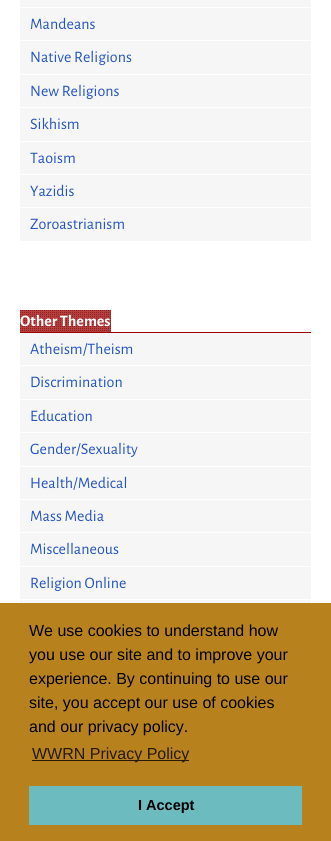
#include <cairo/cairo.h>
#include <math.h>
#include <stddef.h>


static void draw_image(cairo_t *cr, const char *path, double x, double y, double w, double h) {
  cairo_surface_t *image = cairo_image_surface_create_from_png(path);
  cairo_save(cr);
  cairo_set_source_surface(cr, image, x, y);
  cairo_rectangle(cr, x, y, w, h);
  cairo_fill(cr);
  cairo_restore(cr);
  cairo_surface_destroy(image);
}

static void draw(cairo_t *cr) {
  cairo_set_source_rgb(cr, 1, 1, 1);
  cairo_paint(cr);
  cairo_set_source_rgb(cr, 246 / 255.0, 246 / 255.0, 246 / 255.0);
  cairo_rectangle(cr, 20, 0, 291, 7);
  cairo_fill(cr);
  cairo_rectangle(cr, 20, 8, 291, 32);
  cairo_fill(cr);
  cairo_rectangle(cr, 20, 41, 291, 33);
  cairo_fill(cr);
  cairo_rectangle(cr, 20, 75, 291, 32);
  cairo_fill(cr);
  cairo_rectangle(cr, 20, 108, 291, 33);
  cairo_fill(cr);
  cairo_rectangle(cr, 20, 142, 291, 32);
  cairo_fill(cr);
  cairo_rectangle(cr, 20, 175, 291, 32);
  cairo_fill(cr);
  cairo_rectangle(cr, 20, 208, 291, 33);
  cairo_fill(cr);
  cairo_set_source_rgb(cr, 156 / 255.0, 0, 0);
  cairo_rectangle(cr, 20, 310, 91, 22);
  cairo_fill(cr);
  draw_image(cr, "images/1.png", 20, 310, 91, 22);
  cairo_rectangle(cr, 20, 332, 291, 1);
  cairo_fill(cr);
  cairo_set_source_rgb(cr, 246 / 255.0, 246 / 255.0, 246 / 255.0);
  cairo_rectangle(cr, 20, 333, 291, 32);
  cairo_fill(cr);
  cairo_rectangle(cr, 20, 366, 291, 33);
  cairo_fill(cr);
  cairo_rectangle(cr, 20, 400, 291, 32);
  cairo_fill(cr);
  cairo_rectangle(cr, 20, 433, 291, 33);
  cairo_fill(cr);
  cairo_rectangle(cr, 20, 467, 291, 32);
  cairo_fill(cr);
  cairo_rectangle(cr, 20, 500, 291, 32);
  cairo_fill(cr);
  cairo_rectangle(cr, 20, 533, 291, 33);
  cairo_fill(cr);
  cairo_rectangle(cr, 20, 567, 291, 32);
  cairo_fill(cr);
  cairo_rectangle(cr, 20, 600, 291, 3);
  cairo_fill(cr);
  cairo_set_source_rgb(cr, 183 / 255.0, 130 / 255.0, 30 / 255.0);
  cairo_rectangle(cr, 0, 603, 331, 238);
  cairo_fill(cr);
  cairo_set_source_rgb(cr, 37 / 255.0, 26 / 255.0, 6 / 255.0);
  cairo_rectangle(cr, 32, 760, 157, 1);
  cairo_fill(cr);
  cairo_set_source_rgb(cr, 108 / 255.0, 187 / 255.0, 190 / 255.0);
  cairo_rectangle(cr, 29, 786, 273, 39);
  cairo_fill(cr);
  cairo_select_font_face(cr, "Alegreya Sans", CAIRO_FONT_SLANT_NORMAL, CAIRO_FONT_WEIGHT_NORMAL);
  cairo_set_font_size(cr, 16);
  cairo_set_source_rgb(cr, 36 / 255.0, 85 / 255.0, 195 / 255.0);
  cairo_move_to(cr, 30, 29);
  cairo_show_text(cr, "Mandeans");
  cairo_move_to(cr, 30, 62);
  cairo_show_text(cr, "Native Religions");
  cairo_move_to(cr, 30, 96);
  cairo_show_text(cr, "New Religions");
  cairo_move_to(cr, 30, 129);
  cairo_show_text(cr, "Sikhism");
  cairo_move_to(cr, 30, 163);
  cairo_show_text(cr, "Taoism");
  cairo_move_to(cr, 30, 196);
  cairo_show_text(cr, "Yazidis");
  cairo_move_to(cr, 30, 229);
  cairo_show_text(cr, "Zoroastrianism");
  cairo_select_font_face(cr, "Alegreya Sans", CAIRO_FONT_SLANT_NORMAL, CAIRO_FONT_WEIGHT_BOLD);
  cairo_set_source_rgb(cr, 1, 1, 1);
  cairo_move_to(cr, 20, 326);
  cairo_show_text(cr, "Other Themes");
  cairo_select_font_face(cr, "Alegreya Sans", CAIRO_FONT_SLANT_NORMAL, CAIRO_FONT_WEIGHT_NORMAL);
  cairo_set_source_rgb(cr, 36 / 255.0, 85 / 255.0, 195 / 255.0);
  cairo_move_to(cr, 30, 354);
  cairo_show_text(cr, "Atheism/Theism");
  cairo_move_to(cr, 30, 387);
  cairo_show_text(cr, "Discrimination");
  cairo_move_to(cr, 30, 421);
  cairo_show_text(cr, "Education");
  cairo_move_to(cr, 30, 454);
  cairo_show_text(cr, "Gender/Sexuality");
  cairo_move_to(cr, 30, 488);
  cairo_show_text(cr, "Health/Medical");
  cairo_move_to(cr, 30, 521);
  cairo_show_text(cr, "Mass Media");
  cairo_move_to(cr, 30, 554);
  cairo_show_text(cr, "Miscellaneous");
  cairo_move_to(cr, 30, 588);
  cairo_show_text(cr, "Religion Online");
  cairo_select_font_face(cr, "Liberation Sans", CAIRO_FONT_SLANT_NORMAL, CAIRO_FONT_WEIGHT_NORMAL);
  cairo_set_source_rgb(cr, 0, 0, 0);
  cairo_move_to(cr, 29, 636);
  cairo_show_text(cr, "We use cookies to understand how");
  cairo_move_to(cr, 29, 660);
  cairo_show_text(cr, "you use our site and to improve your");
  cairo_move_to(cr, 29, 684);
  cairo_show_text(cr, "experience. By continuing to use our");
  cairo_move_to(cr, 29, 708);
  cairo_show_text(cr, "site, you accept our use of cookies");
  cairo_move_to(cr, 29, 732);
  cairo_show_text(cr, "and our privacy policy.");
  cairo_set_source_rgb(cr, 37 / 255.0, 26 / 255.0, 6 / 255.0);
  cairo_move_to(cr, 32, 759);
  cairo_show_text(cr, "WWRN Privacy Policy");
  cairo_select_font_face(cr, "Liberation Sans", CAIRO_FONT_SLANT_NORMAL, CAIRO_FONT_WEIGHT_BOLD);
  cairo_set_font_size(cr, 14.5);
  cairo_set_source_rgb(cr, 0, 0, 0);
  cairo_move_to(cr, 138, 810);
  cairo_show_text(cr, "I Accept");
}

int main(void) {
  cairo_surface_t *surface = cairo_image_surface_create(CAIRO_FORMAT_RGB24, 331, 841);
  cairo_t *cr = cairo_create(surface);
  cairo_font_options_t *options = cairo_font_options_create();
  cairo_font_options_set_hint_metrics(options, CAIRO_HINT_METRICS_OFF);
  cairo_font_options_set_hint_style(options, CAIRO_HINT_STYLE_NONE);
  cairo_set_font_options(cr, options);
  cairo_set_miter_limit(cr, 4);
  draw(cr);
  cairo_surface_write_to_png(surface, "out.png");
  cairo_font_options_destroy(options);
  cairo_destroy(cr);
  cairo_surface_destroy(surface);
  return 0;
}
